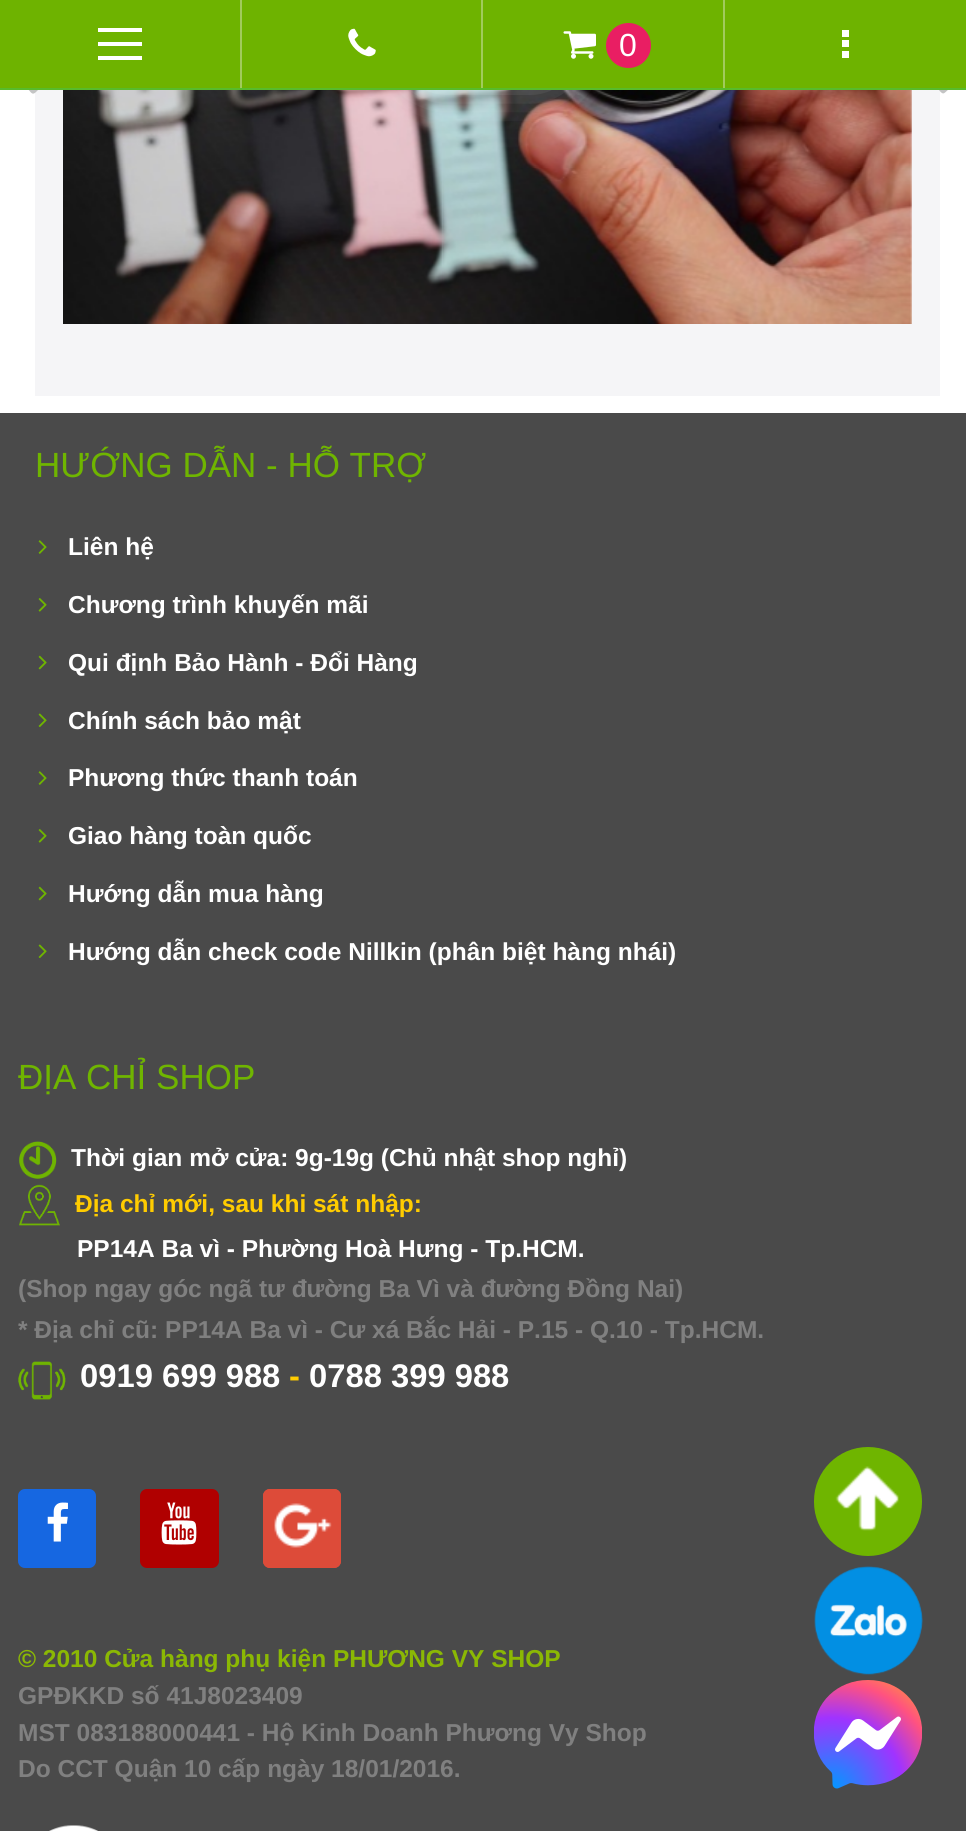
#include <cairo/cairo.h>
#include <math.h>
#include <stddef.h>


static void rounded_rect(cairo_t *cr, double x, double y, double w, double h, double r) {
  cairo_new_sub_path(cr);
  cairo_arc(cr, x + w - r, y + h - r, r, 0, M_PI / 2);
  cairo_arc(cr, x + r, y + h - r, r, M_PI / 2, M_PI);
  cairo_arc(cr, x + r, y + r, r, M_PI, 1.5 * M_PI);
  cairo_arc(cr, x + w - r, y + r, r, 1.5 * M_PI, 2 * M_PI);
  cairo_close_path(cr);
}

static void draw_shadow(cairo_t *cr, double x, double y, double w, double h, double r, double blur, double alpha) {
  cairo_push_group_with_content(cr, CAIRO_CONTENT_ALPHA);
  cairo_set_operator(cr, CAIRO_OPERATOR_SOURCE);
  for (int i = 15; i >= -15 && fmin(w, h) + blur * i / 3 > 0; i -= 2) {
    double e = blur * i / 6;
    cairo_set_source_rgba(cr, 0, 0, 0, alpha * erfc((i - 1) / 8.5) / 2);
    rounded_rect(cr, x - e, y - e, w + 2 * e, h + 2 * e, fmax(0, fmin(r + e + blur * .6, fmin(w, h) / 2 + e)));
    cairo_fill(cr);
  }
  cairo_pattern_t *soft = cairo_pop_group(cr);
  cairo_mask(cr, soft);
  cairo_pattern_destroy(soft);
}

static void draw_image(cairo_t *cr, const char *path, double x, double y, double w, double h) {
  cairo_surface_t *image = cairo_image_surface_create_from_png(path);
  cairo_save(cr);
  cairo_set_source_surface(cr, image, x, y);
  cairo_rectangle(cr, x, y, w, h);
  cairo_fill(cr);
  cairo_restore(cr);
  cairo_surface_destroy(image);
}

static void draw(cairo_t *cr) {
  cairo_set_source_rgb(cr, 1, 1, 1);
  cairo_paint(cr);
  cairo_set_source_rgb(cr, 245 / 255.0, 245 / 255.0, 247 / 255.0);
  cairo_rectangle(cr, 35, 90, 905, 306);
  cairo_fill(cr);
  draw_image(cr, "images/3.png", 63, 90, 849, 234);
  cairo_set_source_rgb(cr, 1, 1, 1);
  draw_shadow(cr, 410, -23, 157, 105, 21, 26, 0.48);
  cairo_set_source_rgb(cr, 195 / 255.0, 196 / 255.0, 196 / 255.0);
  cairo_new_path(cr);
  cairo_move_to(cr, 39, 31);
  cairo_curve_to(cr, 39, 33, 15, 56, 12, 60);
  cairo_line_to(cr, 34, 82);
  cairo_curve_to(cr, 34, 82, 40, 86, 39, 89);
  cairo_line_to(cr, 36, 92);
  cairo_curve_to(cr, 32, 96, 31, 92, 27, 88);
  cairo_line_to(cr, 6, 66);
  cairo_curve_to(cr, -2, 58, -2, 61, 6, 53);
  cairo_curve_to(cr, 9, 49, 31, 25, 34, 25);
  cairo_curve_to(cr, 35, 26, 39, 29, 39, 31);
  cairo_close_path(cr);
  cairo_fill(cr);
  cairo_new_path(cr);
  cairo_move_to(cr, 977, 60);
  cairo_curve_to(cr, 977, 62, 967, 70, 966, 72);
  cairo_line_to(cr, 950, 88);
  cairo_curve_to(cr, 943, 94, 944, 96, 938, 89);
  cairo_curve_to(cr, 935, 87, 942, 83, 942, 82);
  cairo_line_to(cr, 965, 60);
  cairo_line_to(cr, 942, 37);
  cairo_curve_to(cr, 942, 37, 936, 33, 937, 30);
  cairo_line_to(cr, 940, 27);
  cairo_curve_to(cr, 944, 23, 945, 27, 950, 31);
  cairo_line_to(cr, 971, 53);
  cairo_curve_to(cr, 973, 55, 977, 56, 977, 60);
  cairo_close_path(cr);
  cairo_fill(cr);
  cairo_set_source_rgb(cr, 110 / 255.0, 179 / 255.0, 0);
  cairo_rectangle(cr, 0, 0, 966, 88);
  cairo_fill(cr);
  cairo_set_source_rgb(cr, 88 / 255.0, 187 / 255.0, 44 / 255.0);
  cairo_rectangle(cr, 0, 88, 966, 2);
  cairo_fill(cr);
  cairo_set_source_rgb(cr, 161 / 255.0, 203 / 255.0, 92 / 255.0);
  cairo_rectangle(cr, 240, 0, 2, 88);
  cairo_fill(cr);
  cairo_set_source_rgb(cr, 1, 1, 1);
  cairo_rectangle(cr, 98, 42, 44, 4);
  cairo_fill(cr);
  cairo_rectangle(cr, 98, 28, 44, 4);
  cairo_fill(cr);
  cairo_rectangle(cr, 98, 56, 44, 4);
  cairo_fill(cr);
  cairo_set_source_rgb(cr, 161 / 255.0, 203 / 255.0, 92 / 255.0);
  cairo_rectangle(cr, 481, 0, 2, 88);
  cairo_fill(cr);
  draw_image(cr, "images/1.png", 348, 28, 28, 29);
  cairo_rectangle(cr, 723, 0, 2, 88);
  cairo_fill(cr);
  draw_image(cr, "images/2.png", 563, 31, 33, 28);
  cairo_set_source_rgb(cr, 233 / 255.0, 30 / 255.0, 99 / 255.0);
  cairo_arc(cr, 628.5, 45.5, 22.5, 0, 2 * M_PI);
  cairo_fill(cr);
  cairo_set_source_rgb(cr, 1, 1, 1);
  cairo_rectangle(cr, 842, 40, 7, 7);
  cairo_fill(cr);
  cairo_rectangle(cr, 842, 30, 7, 7);
  cairo_fill(cr);
  cairo_rectangle(cr, 842, 51, 7, 7);
  cairo_fill(cr);
  cairo_set_source_rgb(cr, 74 / 255.0, 74 / 255.0, 74 / 255.0);
  cairo_rectangle(cr, 0, 413, 966, 1418);
  cairo_fill(cr);
  draw_image(cr, "images/4.png", 38, 540, 9, 14);
  draw_image(cr, "images/5.png", 38, 598, 9, 14);
  draw_image(cr, "images/6.png", 38, 655, 9, 15);
  draw_image(cr, "images/7.png", 38, 713, 9, 14);
  draw_image(cr, "images/4.png", 38, 771, 9, 14);
  draw_image(cr, "images/5.png", 38, 829, 9, 14);
  draw_image(cr, "images/6.png", 38, 886, 9, 15);
  draw_image(cr, "images/7.png", 38, 944, 9, 14);
  draw_image(cr, "images/8.png", 19, 1141, 38, 38);
  draw_image(cr, "images/9.png", 19, 1184, 41, 42);
  draw_image(cr, "images/10.png", 18, 1361, 48, 39);
  cairo_set_source_rgb(cr, 22 / 255.0, 103 / 255.0, 225 / 255.0);
  rounded_rect(cr, 19, 1490, 76, 77, 6);
  cairo_fill_preserve(cr);
  cairo_stroke(cr);
  draw_image(cr, "images/11.png", 47, 1502, 21, 40);
  cairo_set_source_rgb(cr, 176 / 255.0, 0, 0);
  rounded_rect(cr, 141, 1490, 77, 77, 6);
  cairo_fill_preserve(cr);
  cairo_stroke(cr);
  draw_image(cr, "images/12.png", 161, 1502, 36, 43);
  cairo_set_source_rgb(cr, 221 / 255.0, 75 / 255.0, 57 / 255.0);
  rounded_rect(cr, 263, 1489, 78, 79, 7);
  cairo_fill(cr);
  draw_image(cr, "images/13.png", 274, 1503, 58, 45);
  rounded_rect(cr, 264, 1490, 76, 77, 6);
  cairo_stroke(cr);
  draw_image(cr, "images/14.png", 49, 1825, 49, 6);
  cairo_set_source_rgb(cr, 111 / 255.0, 181 / 255.0, 0);
  rounded_rect(cr, 814, 1447, 108, 109, 54);
  cairo_fill(cr);
  draw_image(cr, "images/15.png", 835, 1466, 64, 65);
  draw_image(cr, "images/16.png", 814, 1566, 109, 109);
  draw_image(cr, "images/17.png", 814, 1680, 108, 109);
  cairo_select_font_face(cr, "Liberation Sans", CAIRO_FONT_SLANT_NORMAL, CAIRO_FONT_WEIGHT_NORMAL);
  cairo_set_font_size(cr, 32);
  cairo_set_source_rgb(cr, 1, 1, 1);
  cairo_move_to(cr, 619, 56);
  cairo_show_text(cr, "0");
  cairo_set_font_size(cr, 35);
  cairo_set_source_rgb(cr, 111 / 255.0, 181 / 255.0, 0);
  cairo_move_to(cr, 35, 477);
  cairo_show_text(cr, "HƯỚNG DẪN - HỖ TRỢ");
  cairo_select_font_face(cr, "Liberation Sans", CAIRO_FONT_SLANT_NORMAL, CAIRO_FONT_WEIGHT_BOLD);
  cairo_set_font_size(cr, 24.5);
  cairo_set_source_rgb(cr, 1, 1, 1);
  cairo_move_to(cr, 68, 555);
  cairo_show_text(cr, "Liên hệ");
  cairo_move_to(cr, 68, 613);
  cairo_show_text(cr, "Chương trình khuyến mãi");
  cairo_move_to(cr, 68, 671);
  cairo_show_text(cr, "Qui định Bảo Hành - Đổi Hàng");
  cairo_move_to(cr, 68, 729);
  cairo_show_text(cr, "Chính sách bảo mật");
  cairo_move_to(cr, 68, 786);
  cairo_show_text(cr, "Phương thức thanh toán");
  cairo_move_to(cr, 68, 844);
  cairo_show_text(cr, "Giao hàng toàn quốc");
  cairo_move_to(cr, 68, 902);
  cairo_show_text(cr, "Hướng dẫn mua hàng");
  cairo_move_to(cr, 68, 960);
  cairo_show_text(cr, "Hướng dẫn check code Nillkin (phân biệt hàng nhái)");
  cairo_select_font_face(cr, "Liberation Sans", CAIRO_FONT_SLANT_NORMAL, CAIRO_FONT_WEIGHT_NORMAL);
  cairo_set_font_size(cr, 35);
  cairo_set_source_rgb(cr, 111 / 255.0, 181 / 255.0, 0);
  cairo_move_to(cr, 18, 1089);
  cairo_show_text(cr, "ĐỊA CHỈ SHOP");
  cairo_select_font_face(cr, "Liberation Sans", CAIRO_FONT_SLANT_NORMAL, CAIRO_FONT_WEIGHT_BOLD);
  cairo_set_font_size(cr, 24.5);
  cairo_set_source_rgb(cr, 1, 1, 1);
  cairo_move_to(cr, 71, 1166);
  cairo_show_text(cr, "Thời gian mở cửa: 9g-19g (Chủ nhật shop nghỉ)");
  cairo_set_source_rgb(cr, 1, 204 / 255.0, 0);
  cairo_move_to(cr, 75, 1212);
  cairo_show_text(cr, "Địa chỉ mới, sau khi sát nhập:");
  cairo_set_source_rgb(cr, 1, 1, 1);
  cairo_move_to(cr, 77, 1257);
  cairo_show_text(cr, "PP14A Ba vì - Phường Hoà Hưng - Tp.HCM.");
  cairo_set_source_rgb(cr, 128 / 255.0, 128 / 255.0, 128 / 255.0);
  cairo_move_to(cr, 18, 1297);
  cairo_show_text(cr, "(Shop ngay góc ngã tư đường Ba Vì và đường Đồng Nai)");
  cairo_move_to(cr, 18, 1338);
  cairo_show_text(cr, "* Địa chỉ cũ: PP14A Ba vì - Cư xá Bắc Hải - P.15 - Q.10 - Tp.HCM.");
  cairo_set_font_size(cr, 32.75);
  cairo_set_source_rgb(cr, 1, 1, 1);
  cairo_move_to(cr, 80, 1387);
  cairo_show_text(cr, "0919 699 988");
  cairo_set_source_rgb(cr, 1, 204 / 255.0, 0);
  cairo_move_to(cr, 289, 1387);
  cairo_show_text(cr, "-");
  cairo_set_source_rgb(cr, 1, 1, 1);
  cairo_move_to(cr, 309, 1387);
  cairo_show_text(cr, "0788 399 988");
  cairo_set_font_size(cr, 24.5);
  cairo_set_source_rgb(cr, 139 / 255.0, 184 / 255.0, 4 / 255.0);
  cairo_move_to(cr, 18, 1667);
  cairo_show_text(cr, "© 2010 Cửa hàng phụ kiện PHƯƠNG VY SHOP");
  cairo_set_source_rgb(cr, 128 / 255.0, 128 / 255.0, 128 / 255.0);
  cairo_move_to(cr, 18, 1704);
  cairo_show_text(cr, "GPĐKKD số 41J8023409");
  cairo_move_to(cr, 18, 1741);
  cairo_show_text(cr, "MST 083188000441 - Hộ Kinh Doanh Phương Vy Shop");
  cairo_move_to(cr, 18, 1777);
  cairo_show_text(cr, "Do CCT Quận 10 cấp ngày 18/01/2016.");
}

int main(void) {
  cairo_surface_t *surface = cairo_image_surface_create(CAIRO_FORMAT_RGB24, 966, 1831);
  cairo_t *cr = cairo_create(surface);
  cairo_font_options_t *options = cairo_font_options_create();
  cairo_font_options_set_hint_metrics(options, CAIRO_HINT_METRICS_OFF);
  cairo_font_options_set_hint_style(options, CAIRO_HINT_STYLE_NONE);
  cairo_set_font_options(cr, options);
  cairo_set_miter_limit(cr, 4);
  draw(cr);
  cairo_surface_write_to_png(surface, "out.png");
  cairo_font_options_destroy(options);
  cairo_destroy(cr);
  cairo_surface_destroy(surface);
  return 0;
}
